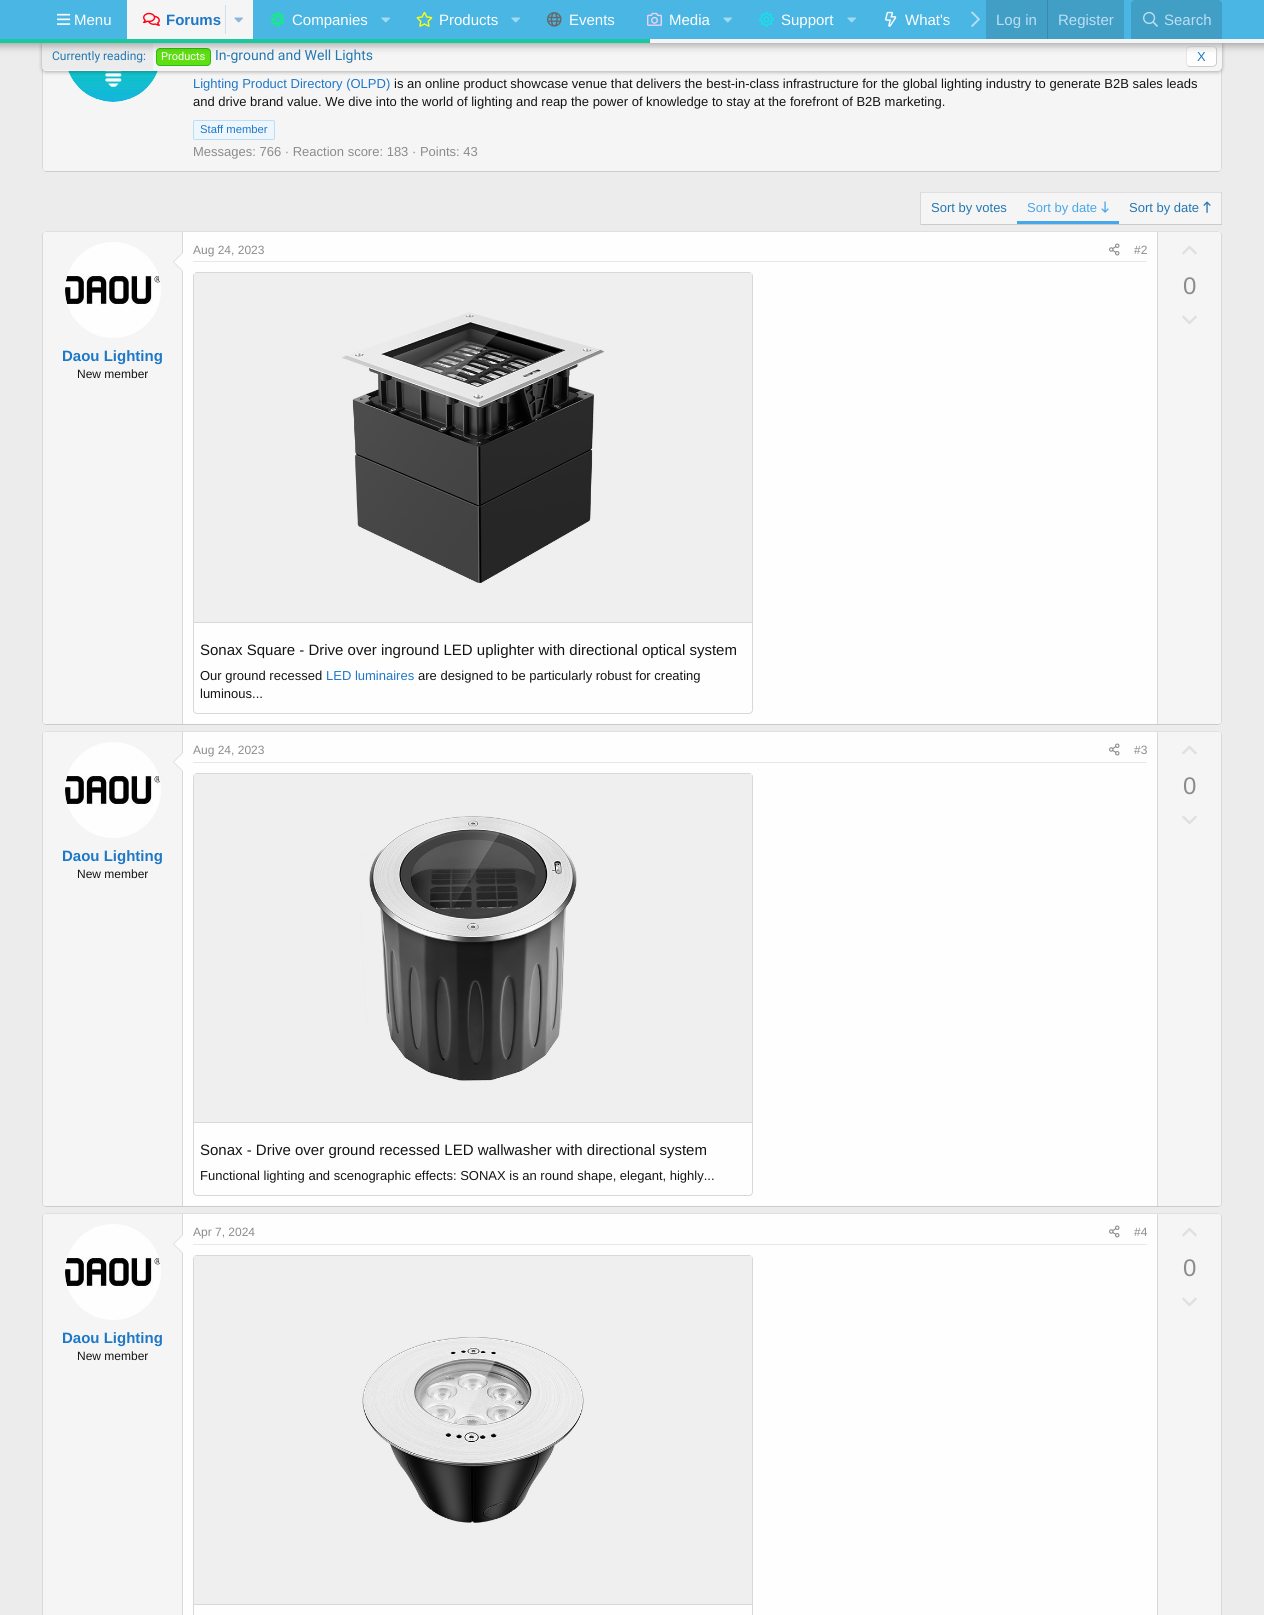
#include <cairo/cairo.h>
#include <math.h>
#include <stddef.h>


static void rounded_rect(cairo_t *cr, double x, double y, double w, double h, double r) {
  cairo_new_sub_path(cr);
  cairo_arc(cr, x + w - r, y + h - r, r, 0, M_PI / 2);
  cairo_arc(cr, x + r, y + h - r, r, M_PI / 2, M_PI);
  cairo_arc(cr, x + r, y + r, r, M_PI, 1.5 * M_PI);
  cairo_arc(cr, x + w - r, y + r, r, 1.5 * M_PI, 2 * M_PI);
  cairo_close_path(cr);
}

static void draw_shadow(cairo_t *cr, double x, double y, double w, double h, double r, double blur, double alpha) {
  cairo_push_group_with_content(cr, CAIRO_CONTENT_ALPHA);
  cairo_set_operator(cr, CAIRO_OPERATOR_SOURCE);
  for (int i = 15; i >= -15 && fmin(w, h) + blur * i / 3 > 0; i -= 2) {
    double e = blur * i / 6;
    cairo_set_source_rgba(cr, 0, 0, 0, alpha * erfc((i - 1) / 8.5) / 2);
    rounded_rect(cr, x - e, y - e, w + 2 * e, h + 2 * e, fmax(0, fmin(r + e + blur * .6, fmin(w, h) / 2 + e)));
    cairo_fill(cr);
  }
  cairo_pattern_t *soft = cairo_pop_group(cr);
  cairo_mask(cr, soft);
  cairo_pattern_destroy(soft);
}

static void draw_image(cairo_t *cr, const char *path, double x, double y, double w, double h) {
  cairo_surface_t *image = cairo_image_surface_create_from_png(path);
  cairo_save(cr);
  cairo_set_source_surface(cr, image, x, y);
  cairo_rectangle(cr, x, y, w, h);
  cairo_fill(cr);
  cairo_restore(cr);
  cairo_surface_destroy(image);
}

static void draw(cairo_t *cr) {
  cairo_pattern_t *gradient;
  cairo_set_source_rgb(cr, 236 / 255.0, 236 / 255.0, 236 / 255.0);
  cairo_paint(cr);
  cairo_set_source_rgb(cr, 254 / 255.0, 254 / 255.0, 254 / 255.0);
  rounded_rect(cr, 42, -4, 1180, 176, 4);
  cairo_fill(cr);
  cairo_new_path(cr);
  cairo_move_to(cr, 1220.5, -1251.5);
  cairo_line_to(cr, 1221.5, -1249);
  cairo_line_to(cr, 1221.5, 168);
  cairo_line_to(cr, 1220.5, 170.5);
  cairo_set_source_rgb(cr, 216 / 255.0, 216 / 255.0, 216 / 255.0);
  cairo_set_line_width(cr, 1);
  cairo_stroke(cr);
  cairo_new_path(cr);
  cairo_move_to(cr, 1220.5, 170.5);
  cairo_line_to(cr, 1218, 171.5);
  cairo_line_to(cr, 46, 171.5);
  cairo_line_to(cr, 43.5, 170.5);
  cairo_set_source_rgb(cr, 203 / 255.0, 203 / 255.0, 203 / 255.0);
  cairo_stroke(cr);
  cairo_new_path(cr);
  cairo_move_to(cr, 43.5, 170.5);
  cairo_line_to(cr, 42.5, 168);
  cairo_line_to(cr, 42.5, -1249);
  cairo_line_to(cr, 43.5, -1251.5);
  cairo_set_source_rgb(cr, 216 / 255.0, 216 / 255.0, 216 / 255.0);
  cairo_stroke(cr);
  cairo_set_source_rgb(cr, 245 / 255.0, 245 / 255.0, 245 / 255.0);
  cairo_new_path(cr);
  cairo_move_to(cr, 43, -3);
  cairo_line_to(cr, 1221, -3);
  cairo_line_to(cr, 1221, 168);
  cairo_curve_to(cr, 1221, 169.5, 1219.5, 171, 1218, 171);
  cairo_line_to(cr, 46, 171);
  cairo_curve_to(cr, 44.5, 171, 43, 169.5, 43, 168);
  cairo_close_path(cr);
  cairo_fill(cr);
  cairo_set_source_rgb(cr, 254 / 255.0, 254 / 255.0, 254 / 255.0);
  cairo_arc(cr, 113, 54, 48, 0, 2 * M_PI);
  cairo_fill(cr);
  draw_image(cr, "images/13.png", 68, 71, 90, 31);
  cairo_set_source_rgb(cr, 0, 0, 0);
  draw_shadow(cr, 42, 42, 1180, 30, 4, 2, 0.3);
  cairo_set_source_rgb(cr, 245 / 255.0, 245 / 255.0, 245 / 255.0);
  cairo_new_path(cr);
  cairo_move_to(cr, 42, 41);
  cairo_line_to(cr, 1222, 41);
  cairo_line_to(cr, 1222, 67);
  cairo_curve_to(cr, 1222, 69, 1220, 71, 1218, 71);
  cairo_line_to(cr, 46, 71);
  cairo_curve_to(cr, 44, 71, 42, 69, 42, 67);
  cairo_close_path(cr);
  cairo_fill(cr);
  cairo_set_source_rgb(cr, 236 / 255.0, 236 / 255.0, 236 / 255.0);
  cairo_new_path(cr);
  cairo_move_to(cr, 42, 42);
  cairo_line_to(cr, 153, 42);
  cairo_line_to(cr, 153, 70);
  cairo_line_to(cr, 46, 70);
  cairo_curve_to(cr, 44, 70, 42, 68, 42, 66);
  cairo_close_path(cr);
  cairo_fill(cr);
  cairo_set_source_rgb(cr, 95 / 255.0, 223 / 255.0, 18 / 255.0);
  rounded_rect(cr, 156.5, 48.5, 54, 17, 3.5);
  cairo_fill_preserve(cr);
  cairo_set_source_rgb(cr, 44 / 255.0, 188 / 255.0, 24 / 255.0);
  cairo_stroke(cr);
  cairo_set_source_rgb(cr, 254 / 255.0, 254 / 255.0, 254 / 255.0);
  rounded_rect(cr, 1186, 46, 31, 21, 4);
  cairo_fill(cr);
  cairo_new_path(cr);
  cairo_move_to(cr, 1215.5, 47.5);
  cairo_curve_to(cr, 1217.5, 49.5, 1216.5, 54, 1216.5, 56.5);
  cairo_line_to(cr, 1216.5, 63.5);
  cairo_curve_to(cr, 1215.5, 67, 1211.5, 66.5, 1209, 66.5);
  cairo_line_to(cr, 1194, 66.5);
  cairo_curve_to(cr, 1192, 66.5, 1189, 67, 1187.5, 65.5);
  cairo_set_source_rgb(cr, 203 / 255.0, 203 / 255.0, 203 / 255.0);
  cairo_stroke(cr);
  cairo_new_path(cr);
  cairo_move_to(cr, 1187.5, 65.5);
  cairo_curve_to(cr, 1185.5, 63.5, 1186.5, 59, 1186.5, 56.5);
  cairo_line_to(cr, 1186.5, 49.5);
  cairo_curve_to(cr, 1187.5, 46, 1191.5, 46.5, 1194, 46.5);
  cairo_line_to(cr, 1209, 46.5);
  cairo_curve_to(cr, 1211, 46.5, 1214, 46, 1215.5, 47.5);
  cairo_set_source_rgb(cr, 229 / 255.0, 229 / 255.0, 229 / 255.0);
  cairo_stroke(cr);
  cairo_set_source_rgb(cr, 0, 0, 0);
  draw_shadow(cr, -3, -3, 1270, 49, 0, 4, 0.3);
  cairo_set_source_rgb(cr, 73 / 255.0, 182 / 255.0, 228 / 255.0);
  cairo_rectangle(cr, 0, 0, 1264, 39);
  cairo_fill(cr);
  draw_image(cr, "images/1.png", 57, 13, 14, 12);
  cairo_set_source_rgb(cr, 245 / 255.0, 245 / 255.0, 245 / 255.0);
  cairo_rectangle(cr, 127, 0, 126, 39);
  cairo_fill(cr);
  draw_image(cr, "images/2.png", 143, 12, 17, 14);
  cairo_set_source_rgb(cr, 208 / 255.0, 223 / 255.0, 237 / 255.0);
  cairo_rectangle(cr, 225, 5, 1, 29);
  cairo_fill(cr);
  draw_image(cr, "images/3.png", 234, 17, 9, 6);
  draw_image(cr, "images/4.png", 271, 11, 14, 16);
  draw_image(cr, "images/5.png", 381, 17, 9, 6);
  draw_image(cr, "images/6.png", 416, 11, 17, 16);
  draw_image(cr, "images/5.png", 511, 17, 9, 6);
  draw_image(cr, "images/7.png", 547, 12, 15, 15);
  draw_image(cr, "images/8.png", 647, 12, 15, 14);
  draw_image(cr, "images/5.png", 723, 17, 9, 6);
  draw_image(cr, "images/9.png", 759, 11, 15, 16);
  draw_image(cr, "images/5.png", 847, 17, 9, 6);
  draw_image(cr, "images/10.png", 885, 11, 12, 16);
  draw_image(cr, "images/11.png", 971, 11, 9, 16);
  cairo_set_source_rgb(cr, 65 / 255.0, 158 / 255.0, 197 / 255.0);
  cairo_rectangle(cr, 986, 0, 138, 39);
  cairo_fill(cr);
  cairo_set_source_rgb(cr, 58 / 255.0, 137 / 255.0, 170 / 255.0);
  cairo_rectangle(cr, 1047, 0, 1, 39);
  cairo_fill(cr);
  cairo_set_source_rgb(cr, 65 / 255.0, 158 / 255.0, 197 / 255.0);
  cairo_new_path(cr);
  cairo_move_to(cr, 1135, 0);
  cairo_line_to(cr, 1218, 0);
  cairo_curve_to(cr, 1220, 0, 1222, 2, 1222, 4);
  cairo_line_to(cr, 1222, 39);
  cairo_line_to(cr, 1131, 39);
  cairo_line_to(cr, 1131, 4);
  cairo_curve_to(cr, 1131, 2, 1133, 0, 1135, 0);
  cairo_close_path(cr);
  cairo_fill(cr);
  draw_image(cr, "images/12.png", 1143, 11, 15, 16);
  cairo_set_source_rgb(cr, 245 / 255.0, 245 / 255.0, 245 / 255.0);
  cairo_rectangle(cr, 650, 39, 614, 4);
  cairo_fill(cr);
  cairo_set_source_rgb(cr, 25 / 255.0, 201 / 255.0, 157 / 255.0);
  cairo_rectangle(cr, 0, 39, 650, 4);
  cairo_fill(cr);
  cairo_set_source_rgb(cr, 237 / 255.0, 246 / 255.0, 253 / 255.0);
  rounded_rect(cr, 193.5, 120.5, 81, 19, 1.5);
  cairo_fill_preserve(cr);
  cairo_set_source_rgb(cr, 188 / 255.0, 222 / 255.0, 245 / 255.0);
  cairo_stroke(cr);
  cairo_set_source_rgb(cr, 245 / 255.0, 245 / 255.0, 245 / 255.0);
  cairo_rectangle(cr, 921, 193, 300, 31);
  cairo_fill(cr);
  cairo_set_source_rgb(cr, 223 / 255.0, 223 / 255.0, 223 / 255.0);
  cairo_rectangle(cr, 920, 192, 302, 1);
  cairo_fill(cr);
  cairo_set_source_rgb(cr, 216 / 255.0, 216 / 255.0, 216 / 255.0);
  cairo_rectangle(cr, 1221, 192, 1, 33);
  cairo_fill(cr);
  cairo_set_source_rgb(cr, 203 / 255.0, 203 / 255.0, 203 / 255.0);
  cairo_rectangle(cr, 920, 224, 302, 1);
  cairo_fill(cr);
  cairo_set_source_rgb(cr, 216 / 255.0, 216 / 255.0, 216 / 255.0);
  cairo_rectangle(cr, 920, 192, 1, 33);
  cairo_fill(cr);
  cairo_set_source_rgb(cr, 71 / 255.0, 167 / 255.0, 235 / 255.0);
  cairo_rectangle(cr, 1017, 221, 102, 3);
  cairo_fill(cr);
  draw_image(cr, "images/14.png", 1101, 201, 8, 12);
  draw_image(cr, "images/15.png", 1203, 201, 8, 12);
  cairo_set_source_rgb(cr, 254 / 255.0, 254 / 255.0, 254 / 255.0);
  rounded_rect(cr, 42, 231, 1180, 494, 4);
  cairo_fill(cr);
  cairo_new_path(cr);
  cairo_move_to(cr, 43.5, 232.5);
  cairo_line_to(cr, 46, 231.5);
  cairo_line_to(cr, 1218, 231.5);
  cairo_line_to(cr, 1220.5, 232.5);
  cairo_set_source_rgb(cr, 223 / 255.0, 223 / 255.0, 223 / 255.0);
  cairo_stroke(cr);
  cairo_new_path(cr);
  cairo_move_to(cr, 1220.5, 232.5);
  cairo_curve_to(cr, 1221, 233, 1221.5, 234, 1221.5, 235);
  cairo_line_to(cr, 1221.5, 721);
  cairo_curve_to(cr, 1221.5, 722, 1221, 723, 1220.5, 723.5);
  cairo_set_source_rgb(cr, 216 / 255.0, 216 / 255.0, 216 / 255.0);
  cairo_stroke(cr);
  cairo_new_path(cr);
  cairo_move_to(cr, 1220.5, 723.5);
  cairo_line_to(cr, 1218, 724.5);
  cairo_line_to(cr, 46, 724.5);
  cairo_line_to(cr, 43.5, 723.5);
  cairo_set_source_rgb(cr, 203 / 255.0, 203 / 255.0, 203 / 255.0);
  cairo_stroke(cr);
  cairo_new_path(cr);
  cairo_move_to(cr, 43.5, 723.5);
  cairo_curve_to(cr, 43, 723, 42.5, 722, 42.5, 721);
  cairo_line_to(cr, 42.5, 235);
  cairo_curve_to(cr, 42.5, 234, 43, 233, 43.5, 232.5);
  cairo_set_source_rgb(cr, 216 / 255.0, 216 / 255.0, 216 / 255.0);
  cairo_stroke(cr);
  cairo_set_source_rgb(cr, 231 / 255.0, 231 / 255.0, 231 / 255.0);
  cairo_rectangle(cr, 193, 261, 954, 1);
  cairo_fill(cr);
  draw_image(cr, "images/16.png", 1109, 243, 11, 13);
  rounded_rect(cr, 193.5, 272.5, 559, 441, 3.5);
  cairo_set_source_rgb(cr, 216 / 255.0, 216 / 255.0, 216 / 255.0);
  cairo_stroke(cr);
  cairo_rectangle(cr, 194, 622, 558, 1);
  cairo_fill(cr);
  draw_image(cr, "images/17.png", 194, 273, 558, 349);
  cairo_set_source_rgb(cr, 245 / 255.0, 245 / 255.0, 245 / 255.0);
  cairo_new_path(cr);
  cairo_move_to(cr, 1157, 232);
  cairo_line_to(cr, 1218, 232);
  cairo_curve_to(cr, 1219.5, 232, 1221, 233.5, 1221, 235);
  cairo_line_to(cr, 1221, 721);
  cairo_curve_to(cr, 1221, 722.5, 1219.5, 724, 1218, 724);
  cairo_line_to(cr, 1157, 724);
  cairo_close_path(cr);
  cairo_fill(cr);
  cairo_set_source_rgb(cr, 216 / 255.0, 216 / 255.0, 216 / 255.0);
  cairo_rectangle(cr, 1157, 232, 1, 492);
  cairo_fill(cr);
  draw_image(cr, "images/18.png", 1182, 245, 15, 10);
  draw_image(cr, "images/19.png", 1182, 315, 15, 10);
  cairo_set_source_rgb(cr, 245 / 255.0, 245 / 255.0, 245 / 255.0);
  cairo_new_path(cr);
  cairo_move_to(cr, 46, 232);
  cairo_line_to(cr, 183, 232);
  cairo_line_to(cr, 183, 724);
  cairo_line_to(cr, 46, 724);
  cairo_curve_to(cr, 44.5, 724, 43, 722.5, 43, 721);
  cairo_line_to(cr, 43, 235);
  cairo_curve_to(cr, 43, 233.5, 44.5, 232, 46, 232);
  cairo_close_path(cr);
  cairo_fill(cr);
  cairo_set_source_rgb(cr, 216 / 255.0, 216 / 255.0, 216 / 255.0);
  cairo_rectangle(cr, 182, 232, 1, 492);
  cairo_fill(cr);
  cairo_set_source_rgb(cr, 254 / 255.0, 254 / 255.0, 254 / 255.0);
  cairo_arc(cr, 113, 290, 48, 0, 2 * M_PI);
  cairo_fill(cr);
  draw_image(cr, "images/20.png", 65, 274, 95, 32);
  cairo_set_source_rgb(cr, 216 / 255.0, 216 / 255.0, 216 / 255.0);
  cairo_new_path(cr);
  cairo_move_to(cr, 183, 252);
  cairo_line_to(cr, 183, 272);
  cairo_line_to(cr, 173, 262);
  cairo_close_path(cr);
  cairo_fill(cr);
  cairo_set_source_rgb(cr, 254 / 255.0, 254 / 255.0, 254 / 255.0);
  cairo_new_path(cr);
  cairo_move_to(cr, 183, 253);
  cairo_line_to(cr, 183, 271);
  cairo_line_to(cr, 174, 262);
  cairo_close_path(cr);
  cairo_fill(cr);
  rounded_rect(cr, 42, 731, 1180, 476, 4);
  cairo_fill(cr);
  cairo_new_path(cr);
  cairo_move_to(cr, 43.5, 732.5);
  cairo_line_to(cr, 46, 731.5);
  cairo_line_to(cr, 1218, 731.5);
  cairo_line_to(cr, 1220.5, 732.5);
  cairo_set_source_rgb(cr, 223 / 255.0, 223 / 255.0, 223 / 255.0);
  cairo_stroke(cr);
  cairo_new_path(cr);
  cairo_move_to(cr, 1220.5, 732.5);
  cairo_curve_to(cr, 1221, 733, 1221.5, 734, 1221.5, 735);
  cairo_line_to(cr, 1221.5, 1203);
  cairo_curve_to(cr, 1221.5, 1204, 1221, 1205, 1220.5, 1205.5);
  cairo_set_source_rgb(cr, 216 / 255.0, 216 / 255.0, 216 / 255.0);
  cairo_stroke(cr);
  cairo_new_path(cr);
  cairo_move_to(cr, 1220.5, 1205.5);
  cairo_line_to(cr, 1218, 1206.5);
  cairo_line_to(cr, 46, 1206.5);
  cairo_line_to(cr, 43.5, 1205.5);
  cairo_set_source_rgb(cr, 203 / 255.0, 203 / 255.0, 203 / 255.0);
  cairo_stroke(cr);
  cairo_new_path(cr);
  cairo_move_to(cr, 43.5, 1205.5);
  cairo_curve_to(cr, 43, 1205, 42.5, 1204, 42.5, 1203);
  cairo_line_to(cr, 42.5, 735);
  cairo_curve_to(cr, 42.5, 734, 43, 733, 43.5, 732.5);
  cairo_set_source_rgb(cr, 216 / 255.0, 216 / 255.0, 216 / 255.0);
  cairo_stroke(cr);
  cairo_set_source_rgb(cr, 231 / 255.0, 231 / 255.0, 231 / 255.0);
  cairo_rectangle(cr, 193, 762, 954, 1);
  cairo_fill(cr);
  draw_image(cr, "images/16.png", 1109, 743, 11, 13);
  rounded_rect(cr, 193.5, 773.5, 559, 422, 3.5);
  cairo_set_source_rgb(cr, 216 / 255.0, 216 / 255.0, 216 / 255.0);
  cairo_stroke(cr);
  cairo_rectangle(cr, 194, 1122, 558, 1);
  cairo_fill(cr);
  draw_image(cr, "images/21.png", 194, 774, 558, 348);
  cairo_set_source_rgb(cr, 245 / 255.0, 245 / 255.0, 245 / 255.0);
  cairo_new_path(cr);
  cairo_move_to(cr, 1157, 732);
  cairo_line_to(cr, 1218, 732);
  cairo_curve_to(cr, 1219.5, 732, 1221, 733.5, 1221, 735);
  cairo_line_to(cr, 1221, 1203);
  cairo_curve_to(cr, 1221, 1204.5, 1219.5, 1206, 1218, 1206);
  cairo_line_to(cr, 1157, 1206);
  cairo_close_path(cr);
  cairo_fill(cr);
  cairo_set_source_rgb(cr, 216 / 255.0, 216 / 255.0, 216 / 255.0);
  cairo_rectangle(cr, 1157, 732, 1, 474);
  cairo_fill(cr);
  draw_image(cr, "images/18.png", 1182, 745, 15, 10);
  draw_image(cr, "images/19.png", 1182, 815, 15, 10);
  cairo_set_source_rgb(cr, 245 / 255.0, 245 / 255.0, 245 / 255.0);
  cairo_new_path(cr);
  cairo_move_to(cr, 46, 732);
  cairo_line_to(cr, 183, 732);
  cairo_line_to(cr, 183, 1206);
  cairo_line_to(cr, 46, 1206);
  cairo_curve_to(cr, 44.5, 1206, 43, 1204.5, 43, 1203);
  cairo_line_to(cr, 43, 735);
  cairo_curve_to(cr, 43, 733.5, 44.5, 732, 46, 732);
  cairo_close_path(cr);
  cairo_fill(cr);
  cairo_set_source_rgb(cr, 216 / 255.0, 216 / 255.0, 216 / 255.0);
  cairo_rectangle(cr, 182, 732, 1, 474);
  cairo_fill(cr);
  cairo_set_source_rgb(cr, 254 / 255.0, 254 / 255.0, 254 / 255.0);
  cairo_arc(cr, 113, 790, 48, 0, 2 * M_PI);
  cairo_fill(cr);
  draw_image(cr, "images/20.png", 65, 774, 95, 32);
  cairo_set_source_rgb(cr, 216 / 255.0, 216 / 255.0, 216 / 255.0);
  cairo_new_path(cr);
  cairo_move_to(cr, 183, 752);
  cairo_line_to(cr, 183, 772);
  cairo_line_to(cr, 173, 762);
  cairo_close_path(cr);
  cairo_fill(cr);
  cairo_set_source_rgb(cr, 254 / 255.0, 254 / 255.0, 254 / 255.0);
  cairo_new_path(cr);
  cairo_move_to(cr, 183, 753);
  cairo_line_to(cr, 183, 771);
  cairo_line_to(cr, 174, 762);
  cairo_close_path(cr);
  cairo_fill(cr);
  rounded_rect(cr, 42, 1213, 1180, 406, 4);
  cairo_fill(cr);
  cairo_new_path(cr);
  cairo_move_to(cr, 43.5, 1214.5);
  cairo_line_to(cr, 46, 1213.5);
  cairo_line_to(cr, 1218, 1213.5);
  cairo_line_to(cr, 1220.5, 1214.5);
  cairo_set_source_rgb(cr, 223 / 255.0, 223 / 255.0, 223 / 255.0);
  cairo_stroke(cr);
  cairo_new_path(cr);
  cairo_move_to(cr, 1220.5, 1214.5);
  cairo_curve_to(cr, 1221, 1215, 1221.5, 1216, 1221.5, 1217);
  cairo_line_to(cr, 1221.5, 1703);
  cairo_curve_to(cr, 1221.5, 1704, 1221, 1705, 1220.5, 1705.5);
  cairo_set_source_rgb(cr, 216 / 255.0, 216 / 255.0, 216 / 255.0);
  cairo_stroke(cr);
  cairo_new_path(cr);
  cairo_move_to(cr, 43.5, 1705.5);
  cairo_curve_to(cr, 43, 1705, 42.5, 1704, 42.5, 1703);
  cairo_line_to(cr, 42.5, 1217);
  cairo_curve_to(cr, 42.5, 1216, 43, 1215, 43.5, 1214.5);
  cairo_stroke(cr);
  cairo_set_source_rgb(cr, 231 / 255.0, 231 / 255.0, 231 / 255.0);
  cairo_rectangle(cr, 193, 1244, 954, 1);
  cairo_fill(cr);
  draw_image(cr, "images/16.png", 1109, 1225, 11, 13);
  rounded_rect(cr, 193.5, 1255.5, 559, 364, 3.5);
  cairo_set_source_rgb(cr, 216 / 255.0, 216 / 255.0, 216 / 255.0);
  cairo_stroke(cr);
  cairo_rectangle(cr, 194, 1604, 558, 1);
  cairo_fill(cr);
  draw_image(cr, "images/22.png", 194, 1256, 558, 348);
  cairo_set_source_rgb(cr, 245 / 255.0, 245 / 255.0, 245 / 255.0);
  cairo_new_path(cr);
  cairo_move_to(cr, 1157, 1214);
  cairo_line_to(cr, 1218, 1214);
  cairo_curve_to(cr, 1219.5, 1214, 1221, 1215.5, 1221, 1217);
  cairo_line_to(cr, 1221, 1615);
  cairo_curve_to(cr, 1221, 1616.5, 1219.5, 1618, 1218, 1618);
  cairo_line_to(cr, 1157, 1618);
  cairo_close_path(cr);
  cairo_fill(cr);
  cairo_set_source_rgb(cr, 216 / 255.0, 216 / 255.0, 216 / 255.0);
  cairo_rectangle(cr, 1157, 1214, 1, 401);
  cairo_fill(cr);
  draw_image(cr, "images/18.png", 1182, 1227, 15, 10);
  draw_image(cr, "images/19.png", 1182, 1297, 15, 10);
  cairo_set_source_rgb(cr, 245 / 255.0, 245 / 255.0, 245 / 255.0);
  cairo_new_path(cr);
  cairo_move_to(cr, 46, 1214);
  cairo_line_to(cr, 183, 1214);
  cairo_line_to(cr, 183, 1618);
  cairo_line_to(cr, 46, 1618);
  cairo_curve_to(cr, 44.5, 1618, 43, 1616.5, 43, 1615);
  cairo_line_to(cr, 43, 1217);
  cairo_curve_to(cr, 43, 1215.5, 44.5, 1214, 46, 1214);
  cairo_close_path(cr);
  cairo_fill(cr);
  cairo_set_source_rgb(cr, 216 / 255.0, 216 / 255.0, 216 / 255.0);
  cairo_rectangle(cr, 182, 1214, 1, 401);
  cairo_fill(cr);
  cairo_set_source_rgb(cr, 254 / 255.0, 254 / 255.0, 254 / 255.0);
  cairo_arc(cr, 113, 1272, 48, 0, 2 * M_PI);
  cairo_fill(cr);
  draw_image(cr, "images/20.png", 65, 1256, 95, 32);
  cairo_set_source_rgb(cr, 216 / 255.0, 216 / 255.0, 216 / 255.0);
  cairo_new_path(cr);
  cairo_move_to(cr, 183, 1234);
  cairo_line_to(cr, 183, 1254);
  cairo_line_to(cr, 173, 1244);
  cairo_close_path(cr);
  cairo_fill(cr);
  cairo_set_source_rgb(cr, 254 / 255.0, 254 / 255.0, 254 / 255.0);
  cairo_new_path(cr);
  cairo_move_to(cr, 183, 1235);
  cairo_line_to(cr, 183, 1253);
  cairo_line_to(cr, 174, 1244);
  cairo_close_path(cr);
  cairo_fill(cr);
  cairo_select_font_face(cr, "Liberation Sans", CAIRO_FONT_SLANT_NORMAL, CAIRO_FONT_WEIGHT_NORMAL);
  cairo_set_font_size(cr, 15);
  cairo_set_source_rgb(cr, 1, 1, 1);
  cairo_move_to(cr, 74, 25);
  cairo_show_text(cr, "Menu");
  cairo_select_font_face(cr, "Liberation Sans", CAIRO_FONT_SLANT_NORMAL, CAIRO_FONT_WEIGHT_BOLD);
  cairo_set_source_rgb(cr, 30 / 255.0, 120 / 255.0, 199 / 255.0);
  cairo_move_to(cr, 166, 25);
  cairo_show_text(cr, "Forums");
  cairo_select_font_face(cr, "Liberation Sans", CAIRO_FONT_SLANT_NORMAL, CAIRO_FONT_WEIGHT_NORMAL);
  cairo_set_source_rgb(cr, 1, 1, 1);
  cairo_move_to(cr, 292, 25);
  cairo_show_text(cr, "Companies");
  cairo_move_to(cr, 439, 25);
  cairo_show_text(cr, "Products");
  cairo_move_to(cr, 569, 25);
  cairo_show_text(cr, "Events");
  cairo_move_to(cr, 669, 25);
  cairo_show_text(cr, "Media");
  cairo_move_to(cr, 781, 25);
  cairo_show_text(cr, "Support");
  cairo_move_to(cr, 905, 25);
  cairo_show_text(cr, "What's");
  gradient = cairo_pattern_create_linear(946, 20, 986, 20);
  cairo_pattern_add_color_stop_rgba(gradient, 0, 73 / 255.0, 182 / 255.0, 228 / 255.0, 0);
  cairo_pattern_add_color_stop_rgba(gradient, 0.33, 73 / 255.0, 182 / 255.0, 228 / 255.0, 1);
  cairo_set_source(cr, gradient);
  cairo_pattern_destroy(gradient);
  cairo_rectangle(cr, 946, 17, 4, 8);
  cairo_fill(cr);
  cairo_set_source_rgb(cr, 188 / 255.0, 222 / 255.0, 245 / 255.0);
  cairo_move_to(cr, 996, 25);
  cairo_show_text(cr, "Log in");
  cairo_move_to(cr, 1058, 25);
  cairo_show_text(cr, "Register");
  cairo_move_to(cr, 1164, 25);
  cairo_show_text(cr, "Search");
  cairo_select_font_face(cr, "Roboto", CAIRO_FONT_SLANT_NORMAL, CAIRO_FONT_WEIGHT_NORMAL);
  cairo_set_font_size(cr, 12);
  cairo_set_source_rgb(cr, 37 / 255.0, 119 / 255.0, 177 / 255.0);
  cairo_move_to(cr, 52, 60);
  cairo_show_text(cr, "Currently reading:");
  cairo_set_font_size(cr, 11);
  cairo_set_source_rgb(cr, 1, 1, 1);
  cairo_move_to(cr, 161, 60);
  cairo_show_text(cr, "Products");
  cairo_set_font_size(cr, 14);
  cairo_set_source_rgb(cr, 37 / 255.0, 119 / 255.0, 177 / 255.0);
  cairo_move_to(cr, 215, 60);
  cairo_show_text(cr, "In-ground and Well Lights");
  cairo_select_font_face(cr, "Liberation Sans", CAIRO_FONT_SLANT_NORMAL, CAIRO_FONT_WEIGHT_NORMAL);
  cairo_set_font_size(cr, 13);
  cairo_set_source_rgb(cr, 30 / 255.0, 120 / 255.0, 199 / 255.0);
  cairo_move_to(cr, 1197, 61);
  cairo_show_text(cr, "X");
  cairo_move_to(cr, 193, 88);
  cairo_show_text(cr, "Lighting Product Directory (OLPD)");
  cairo_set_source_rgb(cr, 20 / 255.0, 20 / 255.0, 20 / 255.0);
  cairo_move_to(cr, 394, 88);
  cairo_show_text(cr, "is an online product showcase venue that delivers the best-in-class infrastructure for the global lighting industry to generate B2B sales leads");
  cairo_move_to(cr, 193, 106);
  cairo_show_text(cr, "and drive brand value. We dive into the world of lighting and reap the power of knowledge to stay at the forefront of B2B marketing.");
  cairo_set_font_size(cr, 11.25);
  cairo_set_source_rgb(cr, 30 / 255.0, 120 / 255.0, 199 / 255.0);
  cairo_move_to(cr, 200, 133);
  cairo_show_text(cr, "Staff member");
  cairo_set_font_size(cr, 13);
  cairo_set_source_rgb(cr, 140 / 255.0, 140 / 255.0, 140 / 255.0);
  cairo_move_to(cr, 193, 156);
  cairo_show_text(cr, "Messages: 766 · Reaction score: 183 · Points: 43");
  cairo_set_source_rgb(cr, 37 / 255.0, 119 / 255.0, 177 / 255.0);
  cairo_move_to(cr, 931, 212);
  cairo_show_text(cr, "Sort by votes");
  cairo_set_source_rgb(cr, 71 / 255.0, 167 / 255.0, 235 / 255.0);
  cairo_move_to(cr, 1027, 212);
  cairo_show_text(cr, "Sort by date");
  cairo_set_source_rgb(cr, 37 / 255.0, 119 / 255.0, 177 / 255.0);
  cairo_move_to(cr, 1129, 212);
  cairo_show_text(cr, "Sort by date");
  cairo_set_font_size(cr, 12);
  cairo_set_source_rgb(cr, 140 / 255.0, 140 / 255.0, 140 / 255.0);
  cairo_move_to(cr, 193, 254);
  cairo_show_text(cr, "Aug 24, 2023");
  cairo_move_to(cr, 1134, 254);
  cairo_show_text(cr, "#2");
  cairo_set_font_size(cr, 15);
  cairo_set_source_rgb(cr, 20 / 255.0, 20 / 255.0, 20 / 255.0);
  cairo_move_to(cr, 200, 655);
  cairo_show_text(cr, "Sonax Square - Drive over inground LED uplighter with directional optical system");
  cairo_set_font_size(cr, 13);
  cairo_move_to(cr, 200, 680);
  cairo_show_text(cr, "Our ground recessed");
  cairo_set_source_rgb(cr, 30 / 255.0, 120 / 255.0, 199 / 255.0);
  cairo_move_to(cr, 326, 680);
  cairo_show_text(cr, "LED luminaires");
  cairo_set_source_rgb(cr, 20 / 255.0, 20 / 255.0, 20 / 255.0);
  cairo_move_to(cr, 418, 680);
  cairo_show_text(cr, "are designed to be particularly robust for creating");
  cairo_move_to(cr, 200, 698);
  cairo_show_text(cr, "luminous...");
  cairo_set_font_size(cr, 24);
  cairo_set_source_rgb(cr, 140 / 255.0, 140 / 255.0, 140 / 255.0);
  cairo_move_to(cr, 1183, 294);
  cairo_show_text(cr, "0");
  cairo_select_font_face(cr, "Liberation Sans", CAIRO_FONT_SLANT_NORMAL, CAIRO_FONT_WEIGHT_BOLD);
  cairo_set_font_size(cr, 15);
  cairo_set_source_rgb(cr, 30 / 255.0, 120 / 255.0, 199 / 255.0);
  cairo_move_to(cr, 62, 361);
  cairo_show_text(cr, "Daou Lighting");
  cairo_select_font_face(cr, "Liberation Sans", CAIRO_FONT_SLANT_NORMAL, CAIRO_FONT_WEIGHT_NORMAL);
  cairo_set_font_size(cr, 12);
  cairo_set_source_rgb(cr, 20 / 255.0, 20 / 255.0, 20 / 255.0);
  cairo_move_to(cr, 77, 378);
  cairo_show_text(cr, "New member");
  cairo_set_source_rgb(cr, 140 / 255.0, 140 / 255.0, 140 / 255.0);
  cairo_move_to(cr, 193, 754);
  cairo_show_text(cr, "Aug 24, 2023");
  cairo_move_to(cr, 1134, 754);
  cairo_show_text(cr, "#3");
  cairo_set_font_size(cr, 15);
  cairo_set_source_rgb(cr, 20 / 255.0, 20 / 255.0, 20 / 255.0);
  cairo_move_to(cr, 200, 1155);
  cairo_show_text(cr, "Sonax - Drive over ground recessed LED wallwasher with directional system");
  cairo_set_font_size(cr, 13);
  cairo_move_to(cr, 200, 1180);
  cairo_show_text(cr, "Functional lighting and scenographic effects: SONAX is an round shape, elegant, highly...");
  cairo_set_font_size(cr, 24);
  cairo_set_source_rgb(cr, 140 / 255.0, 140 / 255.0, 140 / 255.0);
  cairo_move_to(cr, 1183, 794);
  cairo_show_text(cr, "0");
  cairo_select_font_face(cr, "Liberation Sans", CAIRO_FONT_SLANT_NORMAL, CAIRO_FONT_WEIGHT_BOLD);
  cairo_set_font_size(cr, 15);
  cairo_set_source_rgb(cr, 30 / 255.0, 120 / 255.0, 199 / 255.0);
  cairo_move_to(cr, 62, 861);
  cairo_show_text(cr, "Daou Lighting");
  cairo_select_font_face(cr, "Liberation Sans", CAIRO_FONT_SLANT_NORMAL, CAIRO_FONT_WEIGHT_NORMAL);
  cairo_set_font_size(cr, 12);
  cairo_set_source_rgb(cr, 20 / 255.0, 20 / 255.0, 20 / 255.0);
  cairo_move_to(cr, 77, 878);
  cairo_show_text(cr, "New member");
  cairo_set_source_rgb(cr, 140 / 255.0, 140 / 255.0, 140 / 255.0);
  cairo_move_to(cr, 193, 1236);
  cairo_show_text(cr, "Apr 7, 2024");
  cairo_move_to(cr, 1134, 1236);
  cairo_show_text(cr, "#4");
  cairo_set_font_size(cr, 24);
  cairo_move_to(cr, 1183, 1276);
  cairo_show_text(cr, "0");
  cairo_select_font_face(cr, "Liberation Sans", CAIRO_FONT_SLANT_NORMAL, CAIRO_FONT_WEIGHT_BOLD);
  cairo_set_font_size(cr, 15);
  cairo_set_source_rgb(cr, 30 / 255.0, 120 / 255.0, 199 / 255.0);
  cairo_move_to(cr, 62, 1343);
  cairo_show_text(cr, "Daou Lighting");
  cairo_select_font_face(cr, "Liberation Sans", CAIRO_FONT_SLANT_NORMAL, CAIRO_FONT_WEIGHT_NORMAL);
  cairo_set_font_size(cr, 12);
  cairo_set_source_rgb(cr, 20 / 255.0, 20 / 255.0, 20 / 255.0);
  cairo_move_to(cr, 77, 1360);
  cairo_show_text(cr, "New member");
}

int main(void) {
  cairo_surface_t *surface = cairo_image_surface_create(CAIRO_FORMAT_RGB24, 1264, 1615);
  cairo_t *cr = cairo_create(surface);
  cairo_font_options_t *options = cairo_font_options_create();
  cairo_font_options_set_hint_metrics(options, CAIRO_HINT_METRICS_OFF);
  cairo_font_options_set_hint_style(options, CAIRO_HINT_STYLE_NONE);
  cairo_set_font_options(cr, options);
  cairo_set_miter_limit(cr, 4);
  draw(cr);
  cairo_surface_write_to_png(surface, "out.png");
  cairo_font_options_destroy(options);
  cairo_destroy(cr);
  cairo_surface_destroy(surface);
  return 0;
}
